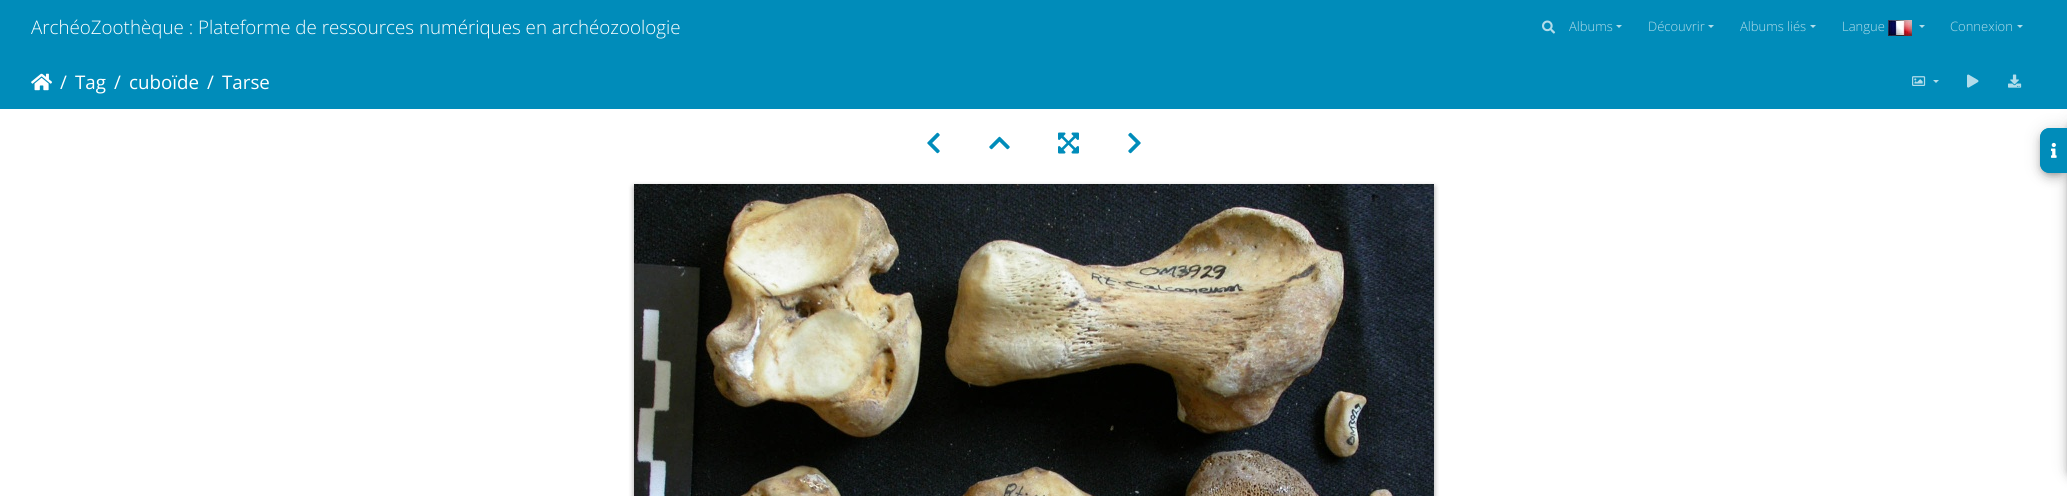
#include <cairo/cairo.h>
#include <math.h>
#include <stddef.h>


static void rounded_rect(cairo_t *cr, double x, double y, double w, double h, double r) {
  cairo_new_sub_path(cr);
  cairo_arc(cr, x + w - r, y + h - r, r, 0, M_PI / 2);
  cairo_arc(cr, x + r, y + h - r, r, M_PI / 2, M_PI);
  cairo_arc(cr, x + r, y + r, r, M_PI, 1.5 * M_PI);
  cairo_arc(cr, x + w - r, y + r, r, 1.5 * M_PI, 2 * M_PI);
  cairo_close_path(cr);
}

static void draw_shadow(cairo_t *cr, double x, double y, double w, double h, double r, double blur, double alpha) {
  cairo_push_group_with_content(cr, CAIRO_CONTENT_ALPHA);
  cairo_set_operator(cr, CAIRO_OPERATOR_SOURCE);
  for (int i = 15; i >= -15 && fmin(w, h) + blur * i / 3 > 0; i -= 2) {
    double e = blur * i / 6;
    cairo_set_source_rgba(cr, 0, 0, 0, alpha * erfc((i - 1) / 8.5) / 2);
    rounded_rect(cr, x - e, y - e, w + 2 * e, h + 2 * e, fmax(0, fmin(r + e + blur * .6, fmin(w, h) / 2 + e)));
    cairo_fill(cr);
  }
  cairo_pattern_t *soft = cairo_pop_group(cr);
  cairo_mask(cr, soft);
  cairo_pattern_destroy(soft);
}

static void draw_image(cairo_t *cr, const char *path, double x, double y, double w, double h) {
  cairo_surface_t *image = cairo_image_surface_create_from_png(path);
  cairo_save(cr);
  cairo_set_source_surface(cr, image, x, y);
  cairo_rectangle(cr, x, y, w, h);
  cairo_fill(cr);
  cairo_restore(cr);
  cairo_surface_destroy(image);
}

static void draw(cairo_t *cr) {
  cairo_set_source_rgb(cr, 1, 1, 1);
  cairo_paint(cr);
  cairo_set_source_rgb(cr, 0, 0, 0);
  draw_shadow(cr, 2067, 119, 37, 357, 10, 9, 0.12);
  draw_shadow(cr, 2067, 124, 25, 357, 10, 5, 0.14);
  draw_shadow(cr, 2040, 129, 27, 45, 10, 9, 0.12);
  cairo_set_source_rgb(cr, 0, 140 / 255.0, 186 / 255.0);
  cairo_rectangle(cr, 0, 0, 2067, 109);
  cairo_fill(cr);
  draw_image(cr, "images/1.png", 1542, 20, 14, 14);
  cairo_set_source_rgb(cr, 179 / 255.0, 221 / 255.0, 234 / 255.0);
  cairo_new_path(cr);
  cairo_move_to(cr, 1616, 25);
  cairo_line_to(cr, 1622, 25);
  cairo_line_to(cr, 1619, 28);
  cairo_close_path(cr);
  cairo_fill(cr);
  cairo_new_path(cr);
  cairo_move_to(cr, 1708, 25);
  cairo_line_to(cr, 1714, 25);
  cairo_line_to(cr, 1711, 28);
  cairo_close_path(cr);
  cairo_fill(cr);
  cairo_new_path(cr);
  cairo_move_to(cr, 1810, 25);
  cairo_line_to(cr, 1816, 25);
  cairo_line_to(cr, 1813, 28);
  cairo_close_path(cr);
  cairo_fill(cr);
  draw_image(cr, "images/2.png", 1888, 20, 24, 16);
  cairo_new_path(cr);
  cairo_move_to(cr, 1919, 25);
  cairo_line_to(cr, 1925, 25);
  cairo_line_to(cr, 1922, 28);
  cairo_close_path(cr);
  cairo_fill(cr);
  cairo_new_path(cr);
  cairo_move_to(cr, 2017, 25);
  cairo_line_to(cr, 2023, 25);
  cairo_line_to(cr, 2020, 28);
  cairo_close_path(cr);
  cairo_fill(cr);
  draw_image(cr, "images/3.png", 31, 73, 21, 18);
  draw_image(cr, "images/4.png", 1912, 76, 14, 10);
  cairo_new_path(cr);
  cairo_move_to(cr, 1933, 80);
  cairo_line_to(cr, 1939, 80);
  cairo_line_to(cr, 1936, 83);
  cairo_close_path(cr);
  cairo_fill(cr);
  draw_image(cr, "images/5.png", 1967, 74, 12, 14);
  draw_image(cr, "images/6.png", 2008, 74, 14, 14);
  draw_image(cr, "images/7.png", 927, 132, 13, 22);
  draw_image(cr, "images/8.png", 989, 136, 21, 14);
  draw_image(cr, "images/9.png", 1058, 132, 21, 22);
  draw_image(cr, "images/10.png", 1128, 132, 13, 22);
  cairo_set_source_rgb(cr, 0, 0, 0);
  draw_shadow(cr, 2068, 122, 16, 355, 9, 2.5, 0.2);
  draw_shadow(cr, 2041, 132, 25, 43, 9, 2.5, 0.2);
  draw_shadow(cr, 2040, 134, 27, 45, 10, 5, 0.14);
  cairo_set_source_rgb(cr, 0, 140 / 255.0, 186 / 255.0);
  cairo_new_path(cr);
  cairo_move_to(cr, 2050, 128);
  cairo_line_to(cr, 2067, 128);
  cairo_line_to(cr, 2067, 173);
  cairo_line_to(cr, 2050, 173);
  cairo_curve_to(cr, 2044.5, 173, 2040, 168.5, 2040, 163);
  cairo_line_to(cr, 2040, 138);
  cairo_curve_to(cr, 2040, 132.5, 2044.5, 128, 2050, 128);
  cairo_close_path(cr);
  cairo_fill(cr);
  cairo_set_fill_rule(cr, CAIRO_FILL_RULE_EVEN_ODD);
  cairo_new_path(cr);
  cairo_move_to(cr, 2050, 128);
  cairo_line_to(cr, 2067, 128);
  cairo_line_to(cr, 2067, 173);
  cairo_line_to(cr, 2050, 173);
  cairo_curve_to(cr, 2044, 173, 2040, 169, 2040, 163);
  cairo_line_to(cr, 2040, 138);
  cairo_curve_to(cr, 2040, 132, 2044, 128, 2050, 128);
  cairo_close_path(cr);
  cairo_move_to(cr, 2050, 129);
  cairo_line_to(cr, 2067, 129);
  cairo_line_to(cr, 2067, 172);
  cairo_line_to(cr, 2050, 172);
  cairo_curve_to(cr, 2045, 172, 2041, 168, 2041, 163);
  cairo_line_to(cr, 2041, 138);
  cairo_curve_to(cr, 2041, 133, 2045, 129, 2050, 129);
  cairo_close_path(cr);
  cairo_fill(cr);
  draw_image(cr, "images/11.png", 2051, 142, 6, 16);
  cairo_set_source_rgb(cr, 0, 0, 0);
  draw_shadow(cr, 634, 187, 800, 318, 0, 3, 0.23);
  draw_shadow(cr, 634, 187, 800, 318, 0, 3, 0.16);
  draw_image(cr, "images/12.png", 634, 184, 800, 312);
  cairo_select_font_face(cr, "Open Sans Light", CAIRO_FONT_SLANT_NORMAL, CAIRO_FONT_WEIGHT_NORMAL);
  cairo_set_font_size(cr, 18.75);
  cairo_set_source_rgb(cr, 1, 1, 1);
  cairo_move_to(cr, 31, 34);
  cairo_show_text(cr, "ArchéoZoothèque : Plateforme de ressources numériques en archéozoologie");
  cairo_set_font_size(cr, 13);
  cairo_set_source_rgb(cr, 179 / 255.0, 221 / 255.0, 234 / 255.0);
  cairo_move_to(cr, 1569, 31);
  cairo_show_text(cr, "Albums");
  cairo_move_to(cr, 1648, 31);
  cairo_show_text(cr, "Découvrir");
  cairo_move_to(cr, 1740, 31);
  cairo_show_text(cr, "Albums liés");
  cairo_move_to(cr, 1842, 31);
  cairo_show_text(cr, "Langue");
  cairo_move_to(cr, 1950, 31);
  cairo_show_text(cr, "Connexion");
  cairo_select_font_face(cr, "Open Sans", CAIRO_FONT_SLANT_NORMAL, CAIRO_FONT_WEIGHT_NORMAL);
  cairo_set_font_size(cr, 18.75);
  cairo_set_source_rgb(cr, 1, 1, 1);
  cairo_move_to(cr, 60, 89);
  cairo_show_text(cr, "/");
  cairo_move_to(cr, 75, 89);
  cairo_show_text(cr, "Tag");
  cairo_move_to(cr, 114, 89);
  cairo_show_text(cr, "/");
  cairo_move_to(cr, 129, 89);
  cairo_show_text(cr, "cuboïde");
  cairo_move_to(cr, 207, 89);
  cairo_show_text(cr, "/");
  cairo_move_to(cr, 222, 89);
  cairo_show_text(cr, "Tarse");
}

int main(void) {
  cairo_surface_t *surface = cairo_image_surface_create(CAIRO_FORMAT_RGB24, 2067, 496);
  cairo_t *cr = cairo_create(surface);
  cairo_font_options_t *options = cairo_font_options_create();
  cairo_font_options_set_hint_metrics(options, CAIRO_HINT_METRICS_OFF);
  cairo_font_options_set_hint_style(options, CAIRO_HINT_STYLE_NONE);
  cairo_set_font_options(cr, options);
  cairo_set_miter_limit(cr, 4);
  draw(cr);
  cairo_surface_write_to_png(surface, "out.png");
  cairo_font_options_destroy(options);
  cairo_destroy(cr);
  cairo_surface_destroy(surface);
  return 0;
}
